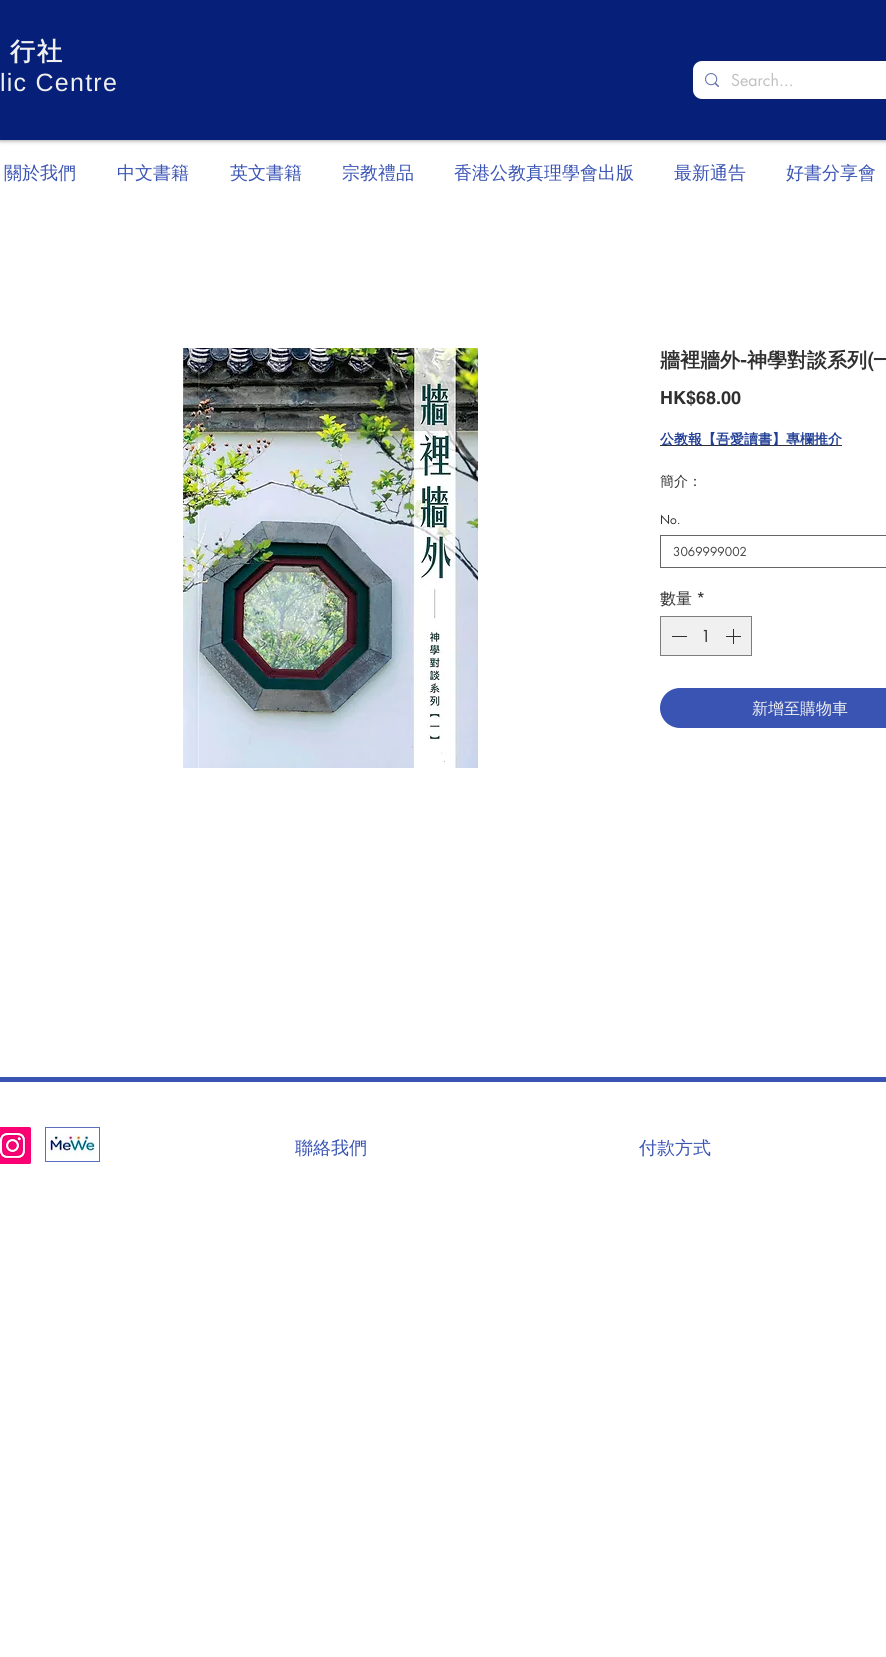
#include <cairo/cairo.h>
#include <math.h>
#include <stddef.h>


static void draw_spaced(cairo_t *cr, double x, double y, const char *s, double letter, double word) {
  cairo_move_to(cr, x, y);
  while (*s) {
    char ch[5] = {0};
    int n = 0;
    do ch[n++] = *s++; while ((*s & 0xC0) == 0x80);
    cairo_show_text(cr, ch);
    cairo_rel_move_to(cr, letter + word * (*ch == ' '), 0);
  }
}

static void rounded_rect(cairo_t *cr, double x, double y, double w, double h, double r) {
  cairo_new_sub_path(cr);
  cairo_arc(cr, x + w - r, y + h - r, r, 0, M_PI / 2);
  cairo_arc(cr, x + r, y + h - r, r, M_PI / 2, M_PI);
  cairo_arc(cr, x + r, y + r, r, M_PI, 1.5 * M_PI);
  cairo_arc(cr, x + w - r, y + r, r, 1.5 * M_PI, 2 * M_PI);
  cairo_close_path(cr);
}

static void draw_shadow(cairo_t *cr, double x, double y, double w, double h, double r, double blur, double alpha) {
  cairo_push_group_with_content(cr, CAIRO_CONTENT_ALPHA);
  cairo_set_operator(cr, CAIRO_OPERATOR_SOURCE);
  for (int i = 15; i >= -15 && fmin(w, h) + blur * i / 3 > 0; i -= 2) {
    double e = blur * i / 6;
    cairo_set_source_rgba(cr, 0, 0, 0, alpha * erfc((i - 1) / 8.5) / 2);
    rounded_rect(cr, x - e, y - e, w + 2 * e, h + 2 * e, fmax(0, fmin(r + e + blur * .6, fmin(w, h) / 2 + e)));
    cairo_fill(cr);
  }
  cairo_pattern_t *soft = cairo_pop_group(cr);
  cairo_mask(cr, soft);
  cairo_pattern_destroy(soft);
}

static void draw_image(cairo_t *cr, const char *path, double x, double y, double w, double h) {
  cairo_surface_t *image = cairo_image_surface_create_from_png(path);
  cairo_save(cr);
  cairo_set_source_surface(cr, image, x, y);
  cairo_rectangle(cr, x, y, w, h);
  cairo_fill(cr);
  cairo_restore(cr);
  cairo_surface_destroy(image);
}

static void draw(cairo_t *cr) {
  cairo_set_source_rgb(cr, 1, 1, 1);
  cairo_paint(cr);
  cairo_set_source_rgb(cr, 0, 0, 0);
  draw_shadow(cr, 0, 0, 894, 140, 0, 2.5, 0.5);
  cairo_set_source_rgb(cr, 6 / 255.0, 31 / 255.0, 120 / 255.0);
  cairo_rectangle(cr, 0, 0, 886, 140);
  cairo_fill(cr);
  rounded_rect(cr, 692.5, 60.5, 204, 39, 9.5);
  cairo_set_source_rgb(cr, 12 / 255.0, 33 / 255.0, 110 / 255.0);
  cairo_set_line_width(cr, 1);
  cairo_stroke(cr);
  cairo_set_source_rgb(cr, 1, 1, 1);
  rounded_rect(cr, 693, 61, 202, 38, 9);
  cairo_fill(cr);
  draw_image(cr, "images/1.png", 705, 73, 14, 14);
  draw_image(cr, "images/2.png", 183, 348, 295, 420);
  cairo_set_source_rgb(cr, 48 / 255.0, 48 / 255.0, 48 / 255.0);
  cairo_rectangle(cr, 660, 445, 182, 1);
  cairo_fill(cr);
  cairo_rectangle(cr, 660.5, 535.5, 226, 32);
  cairo_set_source_rgb(cr, 102 / 255.0, 102 / 255.0, 102 / 255.0);
  cairo_stroke(cr);
  cairo_set_source_rgb(cr, 240 / 255.0, 240 / 255.0, 240 / 255.0);
  cairo_rectangle(cr, 660.5, 616.5, 91, 39);
  cairo_fill_preserve(cr);
  cairo_set_source_rgb(cr, 125 / 255.0, 125 / 255.0, 125 / 255.0);
  cairo_stroke(cr);
  cairo_set_source_rgb(cr, 48 / 255.0, 48 / 255.0, 48 / 255.0);
  cairo_rectangle(cr, 672, 636, 15, 1);
  cairo_fill(cr);
  draw_image(cr, "images/3.png", 726, 629, 15, 15);
  cairo_set_source_rgb(cr, 58 / 255.0, 84 / 255.0, 180 / 255.0);
  rounded_rect(cr, 660, 688, 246, 40, 20);
  cairo_fill(cr);
  cairo_rectangle(cr, 0, 1077, 886, 5);
  cairo_fill(cr);
  draw_image(cr, "images/4.png", 0, 1127, 31, 37);
  cairo_rectangle(cr, 45.5, 1127.5, 54, 34);
  cairo_set_source_rgb(cr, 90 / 255.0, 111 / 255.0, 192 / 255.0);
  cairo_stroke(cr);
  draw_image(cr, "images/5.png", 46, 1128, 53, 33);
  cairo_select_font_face(cr, "WenQuanYi Zen Hei", CAIRO_FONT_SLANT_NORMAL, CAIRO_FONT_WEIGHT_BOLD);
  cairo_set_font_size(cr, 25);
  cairo_set_source_rgb(cr, 240 / 255.0, 240 / 255.0, 240 / 255.0);
  draw_spaced(cr, 10, 60, "行社", 2, 0);
  cairo_select_font_face(cr, "Liberation Sans", CAIRO_FONT_SLANT_NORMAL, CAIRO_FONT_WEIGHT_NORMAL);
  draw_spaced(cr, 0, 91, "lic Centre", 1.25, 0);
  cairo_select_font_face(cr, "futura", CAIRO_FONT_SLANT_NORMAL, CAIRO_FONT_WEIGHT_NORMAL);
  cairo_set_font_size(cr, 16);
  cairo_set_source_rgb(cr, 192 / 255.0, 192 / 255.0, 192 / 255.0);
  cairo_move_to(cr, 731, 86);
  cairo_show_text(cr, "Search...");
  cairo_select_font_face(cr, "WenQuanYi Zen Hei Medium", CAIRO_FONT_SLANT_NORMAL, CAIRO_FONT_WEIGHT_NORMAL);
  cairo_set_font_size(cr, 18);
  cairo_set_source_rgb(cr, 58 / 255.0, 84 / 255.0, 180 / 255.0);
  cairo_move_to(cr, 4, 179);
  cairo_show_text(cr, "關於我們");
  cairo_move_to(cr, 117, 179);
  cairo_show_text(cr, "中文書籍");
  cairo_move_to(cr, 230, 179);
  cairo_show_text(cr, "英文書籍");
  cairo_move_to(cr, 342, 179);
  cairo_show_text(cr, "宗教禮品");
  cairo_move_to(cr, 454, 179);
  cairo_show_text(cr, "香港公教真理學會出版");
  cairo_move_to(cr, 674, 179);
  cairo_show_text(cr, "最新通告");
  cairo_move_to(cr, 786, 179);
  cairo_show_text(cr, "好書分享會");
  cairo_select_font_face(cr, "WenQuanYi Zen Hei", CAIRO_FONT_SLANT_NORMAL, CAIRO_FONT_WEIGHT_BOLD);
  cairo_set_font_size(cr, 20);
  cairo_set_source_rgb(cr, 48 / 255.0, 48 / 255.0, 48 / 255.0);
  cairo_move_to(cr, 660, 367);
  cairo_show_text(cr, "牆裡牆外");
  cairo_move_to(cr, 747, 367);
  cairo_show_text(cr, "神學對談系列");
  cairo_select_font_face(cr, "helvetica", CAIRO_FONT_SLANT_NORMAL, CAIRO_FONT_WEIGHT_BOLD);
  cairo_move_to(cr, 867, 367);
  cairo_show_text(cr, "(");
  cairo_select_font_face(cr, "WenQuanYi Zen Hei", CAIRO_FONT_SLANT_NORMAL, CAIRO_FONT_WEIGHT_BOLD);
  cairo_move_to(cr, 873, 367);
  cairo_show_text(cr, "一");
  cairo_select_font_face(cr, "helvetica", CAIRO_FONT_SLANT_NORMAL, CAIRO_FONT_WEIGHT_BOLD);
  cairo_move_to(cr, 740, 367);
  cairo_show_text(cr, "-");
  cairo_select_font_face(cr, "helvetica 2", CAIRO_FONT_SLANT_NORMAL, CAIRO_FONT_WEIGHT_BOLD);
  cairo_set_font_size(cr, 18);
  cairo_move_to(cr, 660, 404);
  cairo_show_text(cr, "HK$68.00");
  cairo_select_font_face(cr, "WenQuanYi Zen Hei", CAIRO_FONT_SLANT_NORMAL, CAIRO_FONT_WEIGHT_BOLD);
  cairo_set_font_size(cr, 14);
  cairo_set_source_rgb(cr, 33 / 255.0, 63 / 255.0, 149 / 255.0);
  cairo_move_to(cr, 660, 444);
  cairo_show_text(cr, "公教報【吾愛讀書】專欄推介");
  cairo_select_font_face(cr, "WenQuanYi Zen Hei Medium", CAIRO_FONT_SLANT_NORMAL, CAIRO_FONT_WEIGHT_NORMAL);
  cairo_set_source_rgb(cr, 48 / 255.0, 48 / 255.0, 48 / 255.0);
  cairo_move_to(cr, 660, 486);
  cairo_show_text(cr, "簡介：");
  cairo_select_font_face(cr, "futura", CAIRO_FONT_SLANT_NORMAL, CAIRO_FONT_WEIGHT_NORMAL);
  cairo_set_font_size(cr, 12);
  cairo_move_to(cr, 660, 524);
  cairo_show_text(cr, "No.");
  cairo_set_source_rgb(cr, 68 / 255.0, 68 / 255.0, 68 / 255.0);
  cairo_move_to(cr, 673, 556);
  cairo_show_text(cr, "3069999002");
  cairo_select_font_face(cr, "WenQuanYi Zen Hei Medium", CAIRO_FONT_SLANT_NORMAL, CAIRO_FONT_WEIGHT_NORMAL);
  cairo_set_font_size(cr, 16);
  cairo_set_source_rgb(cr, 48 / 255.0, 48 / 255.0, 48 / 255.0);
  cairo_move_to(cr, 660, 604);
  cairo_show_text(cr, "數量");
  cairo_select_font_face(cr, "futura", CAIRO_FONT_SLANT_NORMAL, CAIRO_FONT_WEIGHT_NORMAL);
  cairo_move_to(cr, 696, 604);
  cairo_show_text(cr, "*");
  cairo_move_to(cr, 701, 642);
  cairo_show_text(cr, "1");
  cairo_select_font_face(cr, "WenQuanYi Zen Hei Medium", CAIRO_FONT_SLANT_NORMAL, CAIRO_FONT_WEIGHT_NORMAL);
  cairo_set_source_rgb(cr, 240 / 255.0, 240 / 255.0, 240 / 255.0);
  cairo_move_to(cr, 752, 714);
  cairo_show_text(cr, "新增至購物車");
  cairo_set_font_size(cr, 18);
  cairo_set_source_rgb(cr, 58 / 255.0, 84 / 255.0, 180 / 255.0);
  cairo_move_to(cr, 295, 1154);
  cairo_show_text(cr, "聯絡我們");
  cairo_move_to(cr, 639, 1154);
  cairo_show_text(cr, "付款方式");
}

int main(void) {
  cairo_surface_t *surface = cairo_image_surface_create(CAIRO_FORMAT_RGB24, 886, 1657);
  cairo_t *cr = cairo_create(surface);
  cairo_font_options_t *options = cairo_font_options_create();
  cairo_font_options_set_hint_metrics(options, CAIRO_HINT_METRICS_OFF);
  cairo_font_options_set_hint_style(options, CAIRO_HINT_STYLE_NONE);
  cairo_set_font_options(cr, options);
  cairo_set_miter_limit(cr, 4);
  draw(cr);
  cairo_surface_write_to_png(surface, "out.png");
  cairo_font_options_destroy(options);
  cairo_destroy(cr);
  cairo_surface_destroy(surface);
  return 0;
}
